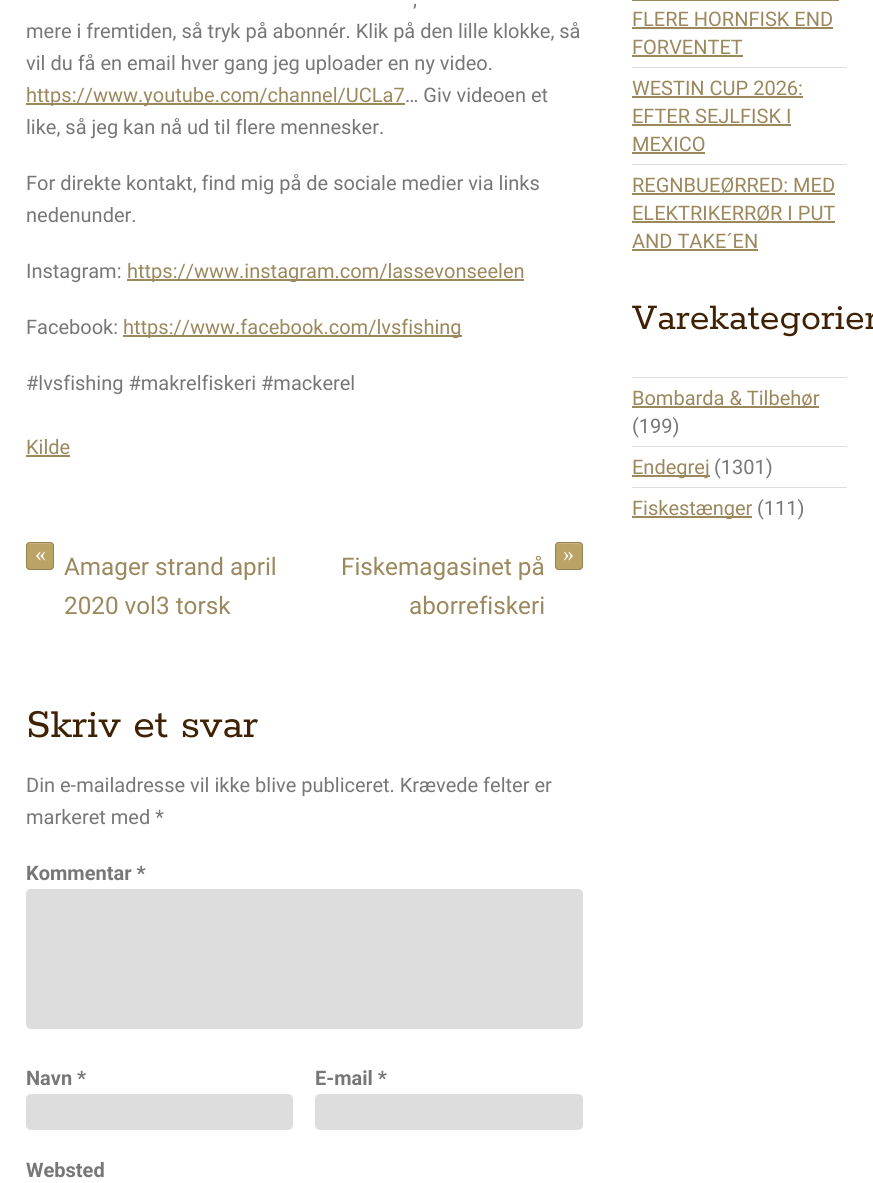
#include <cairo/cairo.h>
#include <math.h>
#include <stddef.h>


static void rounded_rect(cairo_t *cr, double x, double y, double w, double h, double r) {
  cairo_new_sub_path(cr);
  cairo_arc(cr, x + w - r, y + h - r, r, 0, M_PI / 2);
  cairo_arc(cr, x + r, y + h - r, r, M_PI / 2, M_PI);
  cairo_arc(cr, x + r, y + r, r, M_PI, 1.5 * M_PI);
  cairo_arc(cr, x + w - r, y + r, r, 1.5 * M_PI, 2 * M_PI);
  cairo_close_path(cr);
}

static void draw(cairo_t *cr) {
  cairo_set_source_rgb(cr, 1, 1, 1);
  cairo_paint(cr);
  cairo_set_source_rgb(cr, 155 / 255.0, 136 / 255.0, 93 / 255.0);
  cairo_rectangle(cr, 26, 103, 379, 2);
  cairo_fill(cr);
  cairo_rectangle(cr, 127, 279, 397, 2);
  cairo_fill(cr);
  cairo_rectangle(cr, 123, 335, 339, 2);
  cairo_fill(cr);
  cairo_rectangle(cr, 26, 455, 44, 2);
  cairo_fill(cr);
  cairo_set_source_rgb(cr, 187 / 255.0, 162 / 255.0, 101 / 255.0);
  rounded_rect(cr, 26, 542, 28, 28, 4);
  cairo_fill(cr);
  cairo_set_source_rgb(cr, 201 / 255.0, 181 / 255.0, 132 / 255.0);
  cairo_new_path(cr);
  cairo_move_to(cr, 30, 544);
  cairo_line_to(cr, 50, 544);
  cairo_curve_to(cr, 52, 544, 53, 545, 53, 547);
  cairo_curve_to(cr, 53, 542.5, 50.5, 543, 46.5, 543);
  cairo_line_to(cr, 33.5, 543);
  cairo_curve_to(cr, 29.5, 543, 27, 542.5, 27, 547);
  cairo_curve_to(cr, 27, 545, 28, 544, 30, 544);
  cairo_close_path(cr);
  cairo_fill(cr);
  rounded_rect(cr, 26.5, 542.5, 27, 27, 3.5);
  cairo_set_source_rgb(cr, 148 / 255.0, 128 / 255.0, 81 / 255.0);
  cairo_set_line_width(cr, 1);
  cairo_stroke(cr);
  cairo_set_source_rgb(cr, 187 / 255.0, 162 / 255.0, 101 / 255.0);
  rounded_rect(cr, 555, 542, 28, 28, 4);
  cairo_fill(cr);
  cairo_set_source_rgb(cr, 201 / 255.0, 181 / 255.0, 132 / 255.0);
  cairo_new_path(cr);
  cairo_move_to(cr, 559, 544);
  cairo_line_to(cr, 579, 544);
  cairo_curve_to(cr, 581, 544, 582, 545, 582, 547);
  cairo_curve_to(cr, 582, 542.5, 579.5, 543, 575.5, 543);
  cairo_line_to(cr, 562.5, 543);
  cairo_curve_to(cr, 558.5, 543, 556, 542.5, 556, 547);
  cairo_curve_to(cr, 556, 545, 557, 544, 559, 544);
  cairo_close_path(cr);
  cairo_fill(cr);
  rounded_rect(cr, 555.5, 542.5, 27, 27, 3.5);
  cairo_set_source_rgb(cr, 148 / 255.0, 128 / 255.0, 81 / 255.0);
  cairo_stroke(cr);
  cairo_set_source_rgb(cr, 221 / 255.0, 221 / 255.0, 221 / 255.0);
  rounded_rect(cr, 26, 889, 557, 140, 5);
  cairo_fill(cr);
  rounded_rect(cr, 26, 1094, 267, 36, 5);
  cairo_fill(cr);
  rounded_rect(cr, 315, 1094, 268, 36, 5);
  cairo_fill(cr);
  cairo_set_source_rgb(cr, 155 / 255.0, 136 / 255.0, 93 / 255.0);
  cairo_rectangle(cr, 632, 0, 207, 1);
  cairo_fill(cr);
  cairo_rectangle(cr, 632, 27, 201, 2);
  cairo_fill(cr);
  cairo_rectangle(cr, 632, 55, 111, 2);
  cairo_fill(cr);
  cairo_set_source_rgb(cr, 221 / 255.0, 221 / 255.0, 221 / 255.0);
  cairo_rectangle(cr, 632, 67, 215, 1);
  cairo_fill(cr);
  cairo_set_source_rgb(cr, 155 / 255.0, 136 / 255.0, 93 / 255.0);
  cairo_rectangle(cr, 632, 96, 171, 2);
  cairo_fill(cr);
  cairo_rectangle(cr, 632, 124, 159, 2);
  cairo_fill(cr);
  cairo_rectangle(cr, 632, 152, 73, 2);
  cairo_fill(cr);
  cairo_set_source_rgb(cr, 221 / 255.0, 221 / 255.0, 221 / 255.0);
  cairo_rectangle(cr, 632, 164, 215, 1);
  cairo_fill(cr);
  cairo_set_source_rgb(cr, 155 / 255.0, 136 / 255.0, 93 / 255.0);
  cairo_rectangle(cr, 632, 193, 203, 2);
  cairo_fill(cr);
  cairo_rectangle(cr, 632, 221, 203, 2);
  cairo_fill(cr);
  cairo_rectangle(cr, 632, 249, 126, 2);
  cairo_fill(cr);
  cairo_set_source_rgb(cr, 221 / 255.0, 221 / 255.0, 221 / 255.0);
  cairo_rectangle(cr, 632, 377, 215, 1);
  cairo_fill(cr);
  cairo_set_source_rgb(cr, 155 / 255.0, 136 / 255.0, 93 / 255.0);
  cairo_rectangle(cr, 632, 406, 187, 2);
  cairo_fill(cr);
  cairo_set_source_rgb(cr, 221 / 255.0, 221 / 255.0, 221 / 255.0);
  cairo_rectangle(cr, 632, 446, 215, 1);
  cairo_fill(cr);
  cairo_set_source_rgb(cr, 155 / 255.0, 136 / 255.0, 93 / 255.0);
  cairo_rectangle(cr, 632, 475, 78, 2);
  cairo_fill(cr);
  cairo_set_source_rgb(cr, 221 / 255.0, 221 / 255.0, 221 / 255.0);
  cairo_rectangle(cr, 632, 487, 215, 1);
  cairo_fill(cr);
  cairo_set_source_rgb(cr, 155 / 255.0, 136 / 255.0, 93 / 255.0);
  cairo_rectangle(cr, 632, 516, 120, 2);
  cairo_fill(cr);
  cairo_select_font_face(cr, "Roboto", CAIRO_FONT_SLANT_NORMAL, CAIRO_FONT_WEIGHT_NORMAL);
  cairo_set_font_size(cr, 20);
  cairo_set_source_rgb(cr, 119 / 255.0, 119 / 255.0, 119 / 255.0);
  cairo_move_to(cr, 413, 6);
  cairo_show_text(cr, ",");
  cairo_move_to(cr, 26, 38);
  cairo_show_text(cr, "mere i fremtiden, så tryk på abonnér. Klik på den lille klokke, så");
  cairo_move_to(cr, 26, 70);
  cairo_show_text(cr, "vil du få en email hver gang jeg uploader en ny video.");
  cairo_set_source_rgb(cr, 155 / 255.0, 136 / 255.0, 93 / 255.0);
  cairo_move_to(cr, 26, 102);
  cairo_show_text(cr, "https://www.youtube.com/channel/UCLa7");
  cairo_set_source_rgb(cr, 119 / 255.0, 119 / 255.0, 119 / 255.0);
  cairo_move_to(cr, 405, 102);
  cairo_show_text(cr, "… Giv videoen et");
  cairo_move_to(cr, 26, 134);
  cairo_show_text(cr, "like, så jeg kan nå ud til flere mennesker.");
  cairo_move_to(cr, 26, 190);
  cairo_show_text(cr, "For direkte kontakt, find mig på de sociale medier via links");
  cairo_move_to(cr, 26, 222);
  cairo_show_text(cr, "nedenunder.");
  cairo_move_to(cr, 26, 278);
  cairo_show_text(cr, "Instagram:");
  cairo_set_source_rgb(cr, 155 / 255.0, 136 / 255.0, 93 / 255.0);
  cairo_move_to(cr, 127, 278);
  cairo_show_text(cr, "https://www.instagram.com/lassevonseelen");
  cairo_set_source_rgb(cr, 119 / 255.0, 119 / 255.0, 119 / 255.0);
  cairo_move_to(cr, 26, 334);
  cairo_show_text(cr, "Facebook:");
  cairo_set_source_rgb(cr, 155 / 255.0, 136 / 255.0, 93 / 255.0);
  cairo_move_to(cr, 123, 334);
  cairo_show_text(cr, "https://www.facebook.com/lvsfishing");
  cairo_set_source_rgb(cr, 119 / 255.0, 119 / 255.0, 119 / 255.0);
  cairo_move_to(cr, 26, 390);
  cairo_show_text(cr, "#lvsfishing #makrelfiskeri #mackerel");
  cairo_set_source_rgb(cr, 155 / 255.0, 136 / 255.0, 93 / 255.0);
  cairo_move_to(cr, 26, 454);
  cairo_show_text(cr, "Kilde");
  cairo_select_font_face(cr, "Liberation Serif", CAIRO_FONT_SLANT_NORMAL, CAIRO_FONT_WEIGHT_NORMAL);
  cairo_set_font_size(cr, 22);
  cairo_set_source_rgb(cr, 1, 1, 1);
  cairo_move_to(cr, 35, 561);
  cairo_show_text(cr, "«");
  cairo_select_font_face(cr, "Roboto", CAIRO_FONT_SLANT_NORMAL, CAIRO_FONT_WEIGHT_NORMAL);
  cairo_set_font_size(cr, 24.25);
  cairo_set_source_rgb(cr, 155 / 255.0, 136 / 255.0, 93 / 255.0);
  cairo_move_to(cr, 64, 575);
  cairo_show_text(cr, "Amager strand april");
  cairo_move_to(cr, 64, 614);
  cairo_show_text(cr, "2020 vol3 torsk");
  cairo_move_to(cr, 341, 575);
  cairo_show_text(cr, "Fiskemagasinet på");
  cairo_select_font_face(cr, "Liberation Serif", CAIRO_FONT_SLANT_NORMAL, CAIRO_FONT_WEIGHT_NORMAL);
  cairo_set_font_size(cr, 22);
  cairo_set_source_rgb(cr, 1, 1, 1);
  cairo_move_to(cr, 563, 561);
  cairo_show_text(cr, "»");
  cairo_select_font_face(cr, "Roboto", CAIRO_FONT_SLANT_NORMAL, CAIRO_FONT_WEIGHT_NORMAL);
  cairo_set_font_size(cr, 24.25);
  cairo_set_source_rgb(cr, 155 / 255.0, 136 / 255.0, 93 / 255.0);
  cairo_move_to(cr, 409, 614);
  cairo_show_text(cr, "aborrefiskeri");
  cairo_select_font_face(cr, "Rokkitt SemiBold", CAIRO_FONT_SLANT_NORMAL, CAIRO_FONT_WEIGHT_NORMAL);
  cairo_set_font_size(cr, 44);
  cairo_set_source_rgb(cr, 63 / 255.0, 33 / 255.0, 3 / 255.0);
  cairo_move_to(cr, 26, 737);
  cairo_show_text(cr, "Skriv et svar");
  cairo_select_font_face(cr, "Roboto", CAIRO_FONT_SLANT_NORMAL, CAIRO_FONT_WEIGHT_NORMAL);
  cairo_set_font_size(cr, 20);
  cairo_set_source_rgb(cr, 119 / 255.0, 119 / 255.0, 119 / 255.0);
  cairo_move_to(cr, 26, 792);
  cairo_show_text(cr, "Din e-mailadresse vil ikke blive publiceret. Krævede felter er");
  cairo_move_to(cr, 26, 824);
  cairo_show_text(cr, "markeret med *");
  cairo_select_font_face(cr, "Roboto", CAIRO_FONT_SLANT_NORMAL, CAIRO_FONT_WEIGHT_BOLD);
  cairo_move_to(cr, 26, 880);
  cairo_show_text(cr, "Kommentar *");
  cairo_move_to(cr, 26, 1085);
  cairo_show_text(cr, "Navn *");
  cairo_move_to(cr, 315, 1085);
  cairo_show_text(cr, "E-mail *");
  cairo_move_to(cr, 26, 1177);
  cairo_show_text(cr, "Websted");
  cairo_select_font_face(cr, "Roboto", CAIRO_FONT_SLANT_NORMAL, CAIRO_FONT_WEIGHT_NORMAL);
  cairo_set_source_rgb(cr, 155 / 255.0, 136 / 255.0, 93 / 255.0);
  cairo_move_to(cr, 632, 26);
  cairo_show_text(cr, "FLERE HORNFISK END");
  cairo_move_to(cr, 632, 54);
  cairo_show_text(cr, "FORVENTET");
  cairo_move_to(cr, 632, 95);
  cairo_show_text(cr, "WESTIN CUP 2026:");
  cairo_move_to(cr, 632, 123);
  cairo_show_text(cr, "EFTER SEJLFISK I");
  cairo_move_to(cr, 632, 151);
  cairo_show_text(cr, "MEXICO");
  cairo_move_to(cr, 632, 192);
  cairo_show_text(cr, "REGNBUEØRRED: MED");
  cairo_move_to(cr, 632, 220);
  cairo_show_text(cr, "ELEKTRIKERRØR I PUT");
  cairo_move_to(cr, 632, 248);
  cairo_show_text(cr, "AND TAKE´EN");
  cairo_select_font_face(cr, "Rokkitt SemiBold", CAIRO_FONT_SLANT_NORMAL, CAIRO_FONT_WEIGHT_NORMAL);
  cairo_set_font_size(cr, 40);
  cairo_set_source_rgb(cr, 63 / 255.0, 33 / 255.0, 3 / 255.0);
  cairo_move_to(cr, 632, 329);
  cairo_show_text(cr, "Varekategorier");
  cairo_select_font_face(cr, "Roboto", CAIRO_FONT_SLANT_NORMAL, CAIRO_FONT_WEIGHT_NORMAL);
  cairo_set_font_size(cr, 20);
  cairo_set_source_rgb(cr, 155 / 255.0, 136 / 255.0, 93 / 255.0);
  cairo_move_to(cr, 632, 405);
  cairo_show_text(cr, "Bombarda & Tilbehør");
  cairo_set_source_rgb(cr, 119 / 255.0, 119 / 255.0, 119 / 255.0);
  cairo_move_to(cr, 632, 433);
  cairo_show_text(cr, "(199)");
  cairo_set_source_rgb(cr, 155 / 255.0, 136 / 255.0, 93 / 255.0);
  cairo_move_to(cr, 632, 474);
  cairo_show_text(cr, "Endegrej");
  cairo_set_source_rgb(cr, 119 / 255.0, 119 / 255.0, 119 / 255.0);
  cairo_move_to(cr, 714, 474);
  cairo_show_text(cr, "(1301)");
  cairo_set_source_rgb(cr, 155 / 255.0, 136 / 255.0, 93 / 255.0);
  cairo_move_to(cr, 632, 515);
  cairo_show_text(cr, "Fiskestænger");
  cairo_set_source_rgb(cr, 119 / 255.0, 119 / 255.0, 119 / 255.0);
  cairo_move_to(cr, 757, 515);
  cairo_show_text(cr, "(111)");
}

int main(void) {
  cairo_surface_t *surface = cairo_image_surface_create(CAIRO_FORMAT_RGB24, 873, 1183);
  cairo_t *cr = cairo_create(surface);
  cairo_font_options_t *options = cairo_font_options_create();
  cairo_font_options_set_hint_metrics(options, CAIRO_HINT_METRICS_OFF);
  cairo_font_options_set_hint_style(options, CAIRO_HINT_STYLE_NONE);
  cairo_set_font_options(cr, options);
  cairo_set_miter_limit(cr, 4);
  draw(cr);
  cairo_surface_write_to_png(surface, "out.png");
  cairo_font_options_destroy(options);
  cairo_destroy(cr);
  cairo_surface_destroy(surface);
  return 0;
}
